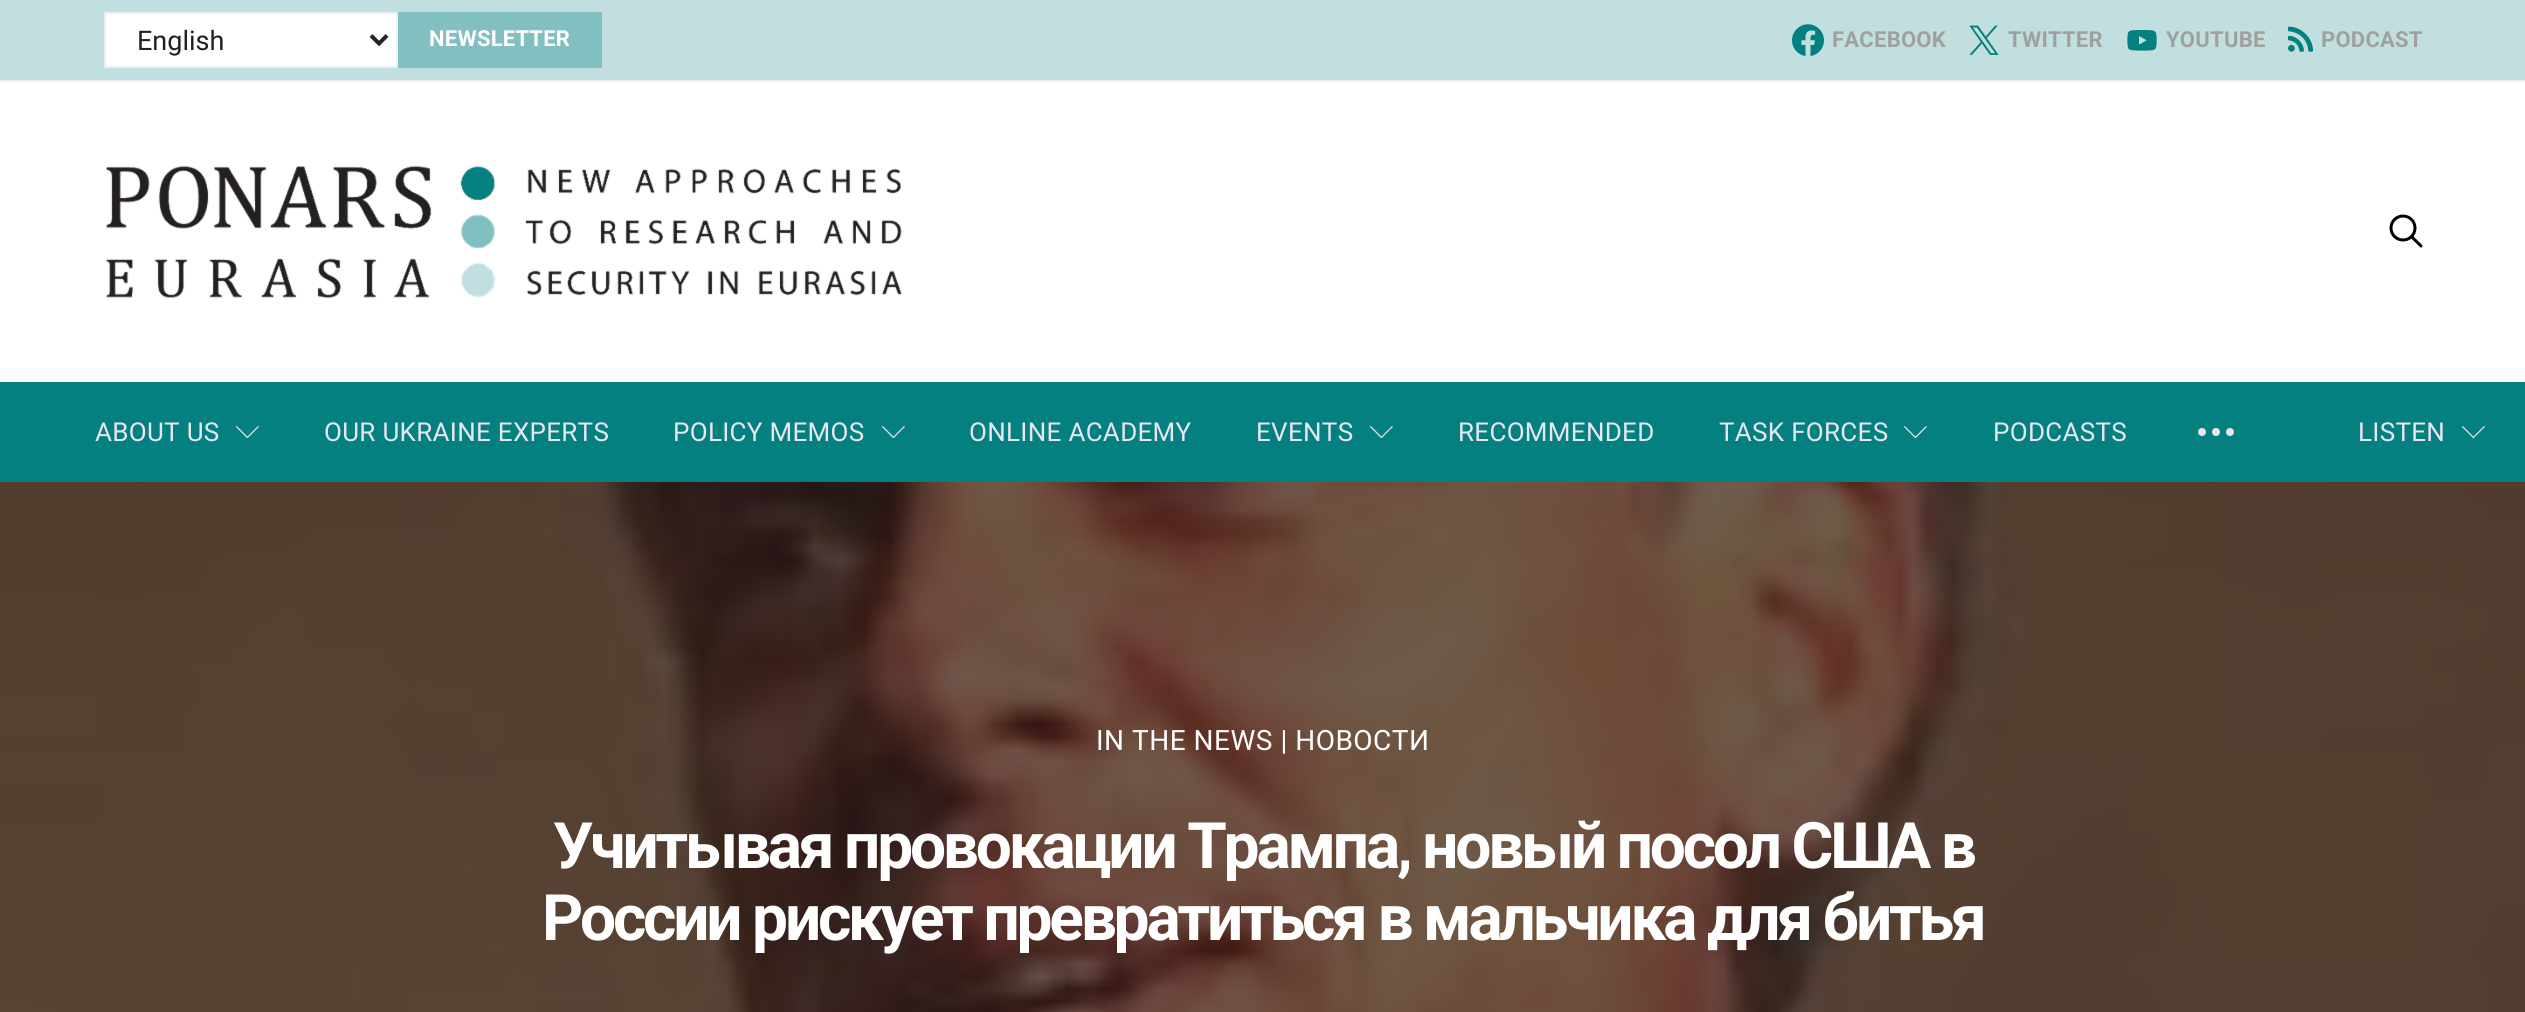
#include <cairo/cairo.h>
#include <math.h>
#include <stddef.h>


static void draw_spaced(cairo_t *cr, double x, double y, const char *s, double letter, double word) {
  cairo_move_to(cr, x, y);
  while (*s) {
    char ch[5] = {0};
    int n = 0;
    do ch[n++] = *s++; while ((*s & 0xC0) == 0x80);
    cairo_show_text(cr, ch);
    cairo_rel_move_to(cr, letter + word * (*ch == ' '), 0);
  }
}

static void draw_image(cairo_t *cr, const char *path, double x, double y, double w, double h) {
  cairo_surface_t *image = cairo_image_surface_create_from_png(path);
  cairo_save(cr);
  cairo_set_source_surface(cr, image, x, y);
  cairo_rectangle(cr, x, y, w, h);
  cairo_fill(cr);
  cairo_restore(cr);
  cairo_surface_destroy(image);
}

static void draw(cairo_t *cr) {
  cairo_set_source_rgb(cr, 1, 1, 1);
  cairo_paint(cr);
  cairo_set_source_rgb(cr, 193 / 255.0, 223 / 255.0, 223 / 255.0);
  cairo_rectangle(cr, 0, 0, 2525, 80);
  cairo_fill(cr);
  cairo_set_source_rgb(cr, 238 / 255.0, 238 / 255.0, 238 / 255.0);
  cairo_rectangle(cr, 0, 80, 2525, 2);
  cairo_fill(cr);
  cairo_set_source_rgb(cr, 1, 1, 1);
  cairo_rectangle(cr, 105, 13, 292, 54);
  cairo_fill_preserve(cr);
  cairo_set_source_rgb(cr, 238 / 255.0, 238 / 255.0, 238 / 255.0);
  cairo_stroke(cr);
  cairo_new_path(cr);
  cairo_move_to(cr, 371, 35.5);
  cairo_line_to(cr, 379, 43.5);
  cairo_line_to(cr, 387, 35.5);
  cairo_set_source_rgb(cr, 36 / 255.0, 32 / 255.0, 33 / 255.0);
  cairo_set_line_width(cr, 4);
  cairo_stroke(cr);
  cairo_set_source_rgb(cr, 130 / 255.0, 191 / 255.0, 192 / 255.0);
  cairo_rectangle(cr, 398, 12, 204, 56);
  cairo_fill(cr);
  draw_image(cr, "images/1.png", 1792, 24, 32, 32);
  draw_image(cr, "images/2.png", 1969, 25, 30, 30);
  draw_image(cr, "images/3.png", 2127, 29, 30, 22);
  draw_image(cr, "images/4.png", 2288, 26, 26, 26);
  draw_image(cr, "images/5.png", 105, 165, 797, 134);
  draw_image(cr, "images/6.png", 2389, 214, 34, 34);
  cairo_set_source_rgb(cr, 4 / 255.0, 128 / 255.0, 128 / 255.0);
  cairo_rectangle(cr, 0, 382, 2525, 100);
  cairo_fill(cr);
  draw_image(cr, "images/7.png", 236, 426, 23, 13);
  draw_image(cr, "images/7.png", 882, 426, 23, 13);
  draw_image(cr, "images/7.png", 1370, 426, 23, 13);
  draw_image(cr, "images/7.png", 1904, 426, 23, 13);
  draw_image(cr, "images/8.png", 2198, 428, 36, 8);
  draw_image(cr, "images/7.png", 2462, 426, 23, 13);
  draw_image(cr, "images/9.png", 0, 482, 2525, 530);
  cairo_select_font_face(cr, "Roboto", CAIRO_FONT_SLANT_NORMAL, CAIRO_FONT_WEIGHT_NORMAL);
  cairo_set_font_size(cr, 27);
  cairo_set_source_rgb(cr, 36 / 255.0, 32 / 255.0, 33 / 255.0);
  cairo_move_to(cr, 137, 50);
  cairo_show_text(cr, "English");
  cairo_select_font_face(cr, "Roboto", CAIRO_FONT_SLANT_NORMAL, CAIRO_FONT_WEIGHT_BOLD);
  cairo_set_font_size(cr, 22);
  cairo_set_source_rgb(cr, 1, 1, 1);
  draw_spaced(cr, 429, 46, "NEWSLETTER", 0.25, 0);
  cairo_set_source_rgb(cr, 160 / 255.0, 160 / 255.0, 160 / 255.0);
  draw_spaced(cr, 1832, 47, "FACEBOOK", 0.25, 0);
  draw_spaced(cr, 2008, 47, "TWITTER", 0.25, 0);
  draw_spaced(cr, 2166, 47, "YOUTUBE", 0.25, 0);
  draw_spaced(cr, 2321, 47, "PODCAST", 0.25, 0);
  cairo_select_font_face(cr, "Roboto", CAIRO_FONT_SLANT_NORMAL, CAIRO_FONT_WEIGHT_NORMAL);
  cairo_set_font_size(cr, 26);
  cairo_set_source_rgb(cr, 231 / 255.0, 231 / 255.0, 240 / 255.0);
  draw_spaced(cr, 95, 441, "ABOUT US", 0.3, 0);
  draw_spaced(cr, 324, 441, "OUR UKRAINE EXPERTS", 0.3, 0);
  draw_spaced(cr, 673, 441, "POLICY MEMOS", 0.3, 0);
  draw_spaced(cr, 969, 441, "ONLINE ACADEMY", 0.3, 0);
  draw_spaced(cr, 1256, 441, "EVENTS", 0.3, 0);
  draw_spaced(cr, 1458, 441, "RECOMMENDED", 0.3, 0);
  draw_spaced(cr, 1719, 441, "TASK FORCES", 0.3, 0);
  draw_spaced(cr, 1993, 441, "PODCASTS", 0.3, 0);
  draw_spaced(cr, 2358, 441, "LISTEN", 0.3, 0);
  cairo_set_font_size(cr, 28);
  cairo_set_source_rgb(cr, 1, 1, 1);
  draw_spaced(cr, 1096, 750, "IN THE NEWS | HОВОСТИ", 0.5, 0);
  cairo_select_font_face(cr, "Roboto", CAIRO_FONT_SLANT_NORMAL, CAIRO_FONT_WEIGHT_BOLD);
  cairo_set_font_size(cr, 64);
  draw_spaced(cr, 553, 868, "Учитывая провокации Трампа, новый посол США в", -3.2, 0);
  draw_spaced(cr, 542, 940, "России рискует превратиться в мальчика для битья", -3.2, 0);
}

int main(void) {
  cairo_surface_t *surface = cairo_image_surface_create(CAIRO_FORMAT_RGB24, 2525, 1012);
  cairo_t *cr = cairo_create(surface);
  cairo_font_options_t *options = cairo_font_options_create();
  cairo_font_options_set_hint_metrics(options, CAIRO_HINT_METRICS_OFF);
  cairo_font_options_set_hint_style(options, CAIRO_HINT_STYLE_NONE);
  cairo_set_font_options(cr, options);
  cairo_set_miter_limit(cr, 4);
  draw(cr);
  cairo_surface_write_to_png(surface, "out.png");
  cairo_font_options_destroy(options);
  cairo_destroy(cr);
  cairo_surface_destroy(surface);
  return 0;
}
